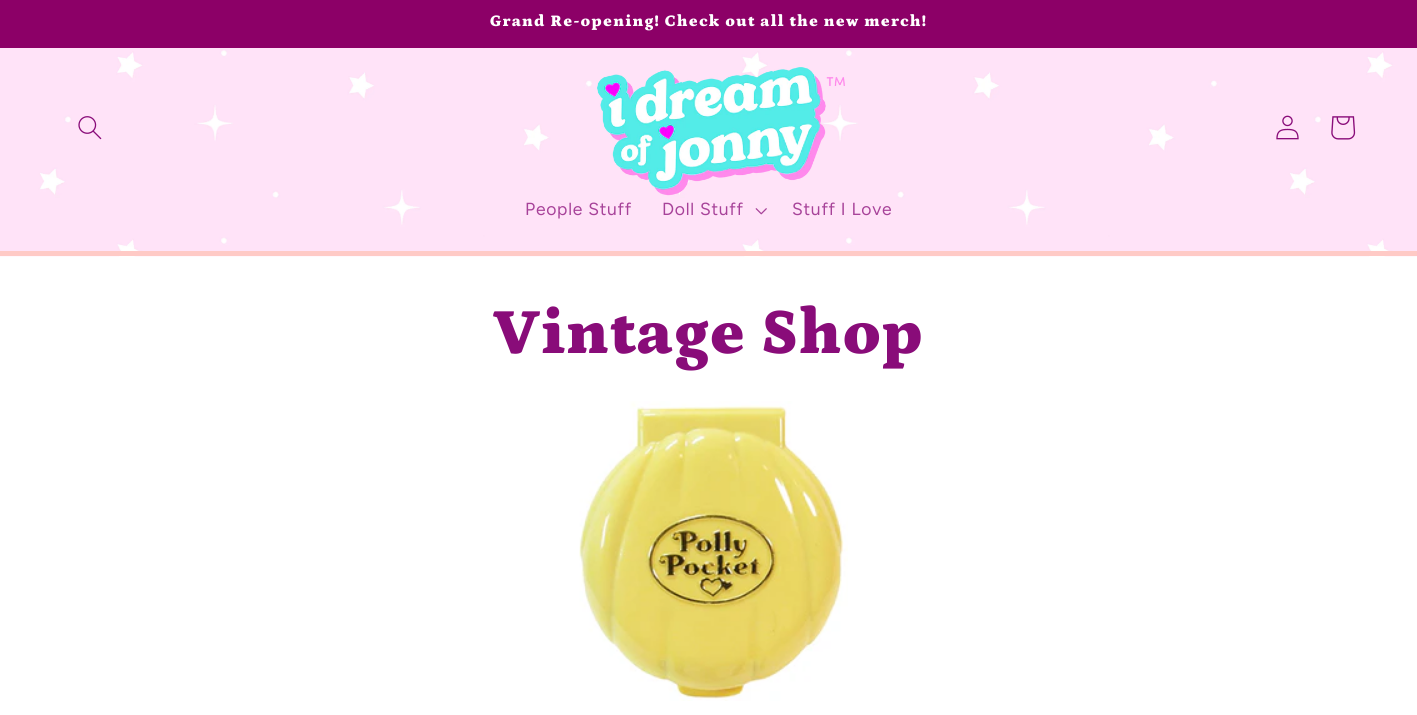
#include <cairo/cairo.h>
#include <math.h>
#include <stddef.h>


static void draw_spaced(cairo_t *cr, double x, double y, const char *s, double letter, double word) {
  cairo_move_to(cr, x, y);
  while (*s) {
    char ch[5] = {0};
    int n = 0;
    do ch[n++] = *s++; while ((*s & 0xC0) == 0x80);
    cairo_show_text(cr, ch);
    cairo_rel_move_to(cr, letter + word * (*ch == ' '), 0);
  }
}

static void draw_image(cairo_t *cr, const char *path, double x, double y, double w, double h) {
  cairo_surface_t *image = cairo_image_surface_create_from_png(path);
  cairo_save(cr);
  cairo_set_source_surface(cr, image, x, y);
  cairo_rectangle(cr, x, y, w, h);
  cairo_fill(cr);
  cairo_restore(cr);
  cairo_surface_destroy(image);
}

static void draw(cairo_t *cr) {
  cairo_set_source_rgb(cr, 1, 1, 1);
  cairo_paint(cr);
  cairo_set_source_rgb(cr, 140 / 255.0, 0, 103 / 255.0);
  cairo_rectangle(cr, 0, 0, 1417, 48);
  cairo_fill(cr);
  draw_image(cr, "images/1.png", 0, 48, 1417, 209);
  cairo_set_source_rgb(cr, 1, 202 / 255.0, 198 / 255.0);
  cairo_rectangle(cr, 0, 251, 1417, 5);
  cairo_fill(cr);
  draw_image(cr, "images/2.png", 78, 116, 24, 24);
  draw_image(cr, "images/3.png", 597, 67, 248, 129);
  draw_image(cr, "images/4.png", 1276, 115, 23, 25);
  draw_image(cr, "images/5.png", 1331, 116, 25, 24);
  draw_image(cr, "images/6.png", 755, 208, 12, 7);
  draw_image(cr, "images/7.png", 579, 401, 269, 300);
  cairo_select_font_face(cr, "Petrona Black", CAIRO_FONT_SLANT_NORMAL, CAIRO_FONT_WEIGHT_NORMAL);
  cairo_set_font_size(cr, 16.25);
  cairo_set_source_rgb(cr, 1, 1, 1);
  draw_spaced(cr, 490, 26, "Grand Re-opening! Check out all the new merch!", 1.25, 0);
  cairo_select_font_face(cr, "Figtree", CAIRO_FONT_SLANT_NORMAL, CAIRO_FONT_WEIGHT_NORMAL);
  cairo_set_font_size(cr, 17.5);
  cairo_set_source_rgb(cr, 167 / 255.0, 66 / 255.0, 153 / 255.0);
  draw_spaced(cr, 525, 215, "People Stuff", 0.75, 0);
  draw_spaced(cr, 662, 215, "Doll Stuff", 0.75, 0);
  draw_spaced(cr, 792, 215, "Stuff I Love", 0.75, 0);
  cairo_select_font_face(cr, "Petrona Black", CAIRO_FONT_SLANT_NORMAL, CAIRO_FONT_WEIGHT_NORMAL);
  cairo_set_font_size(cr, 65);
  cairo_set_source_rgb(cr, 137 / 255.0, 12 / 255.0, 121 / 255.0);
  draw_spaced(cr, 493, 353, "Vintage Shop", 0.75, 0);
}

int main(void) {
  cairo_surface_t *surface = cairo_image_surface_create(CAIRO_FORMAT_RGB24, 1417, 715);
  cairo_t *cr = cairo_create(surface);
  cairo_font_options_t *options = cairo_font_options_create();
  cairo_font_options_set_hint_metrics(options, CAIRO_HINT_METRICS_OFF);
  cairo_font_options_set_hint_style(options, CAIRO_HINT_STYLE_NONE);
  cairo_set_font_options(cr, options);
  cairo_set_miter_limit(cr, 4);
  draw(cr);
  cairo_surface_write_to_png(surface, "out.png");
  cairo_font_options_destroy(options);
  cairo_destroy(cr);
  cairo_surface_destroy(surface);
  return 0;
}
